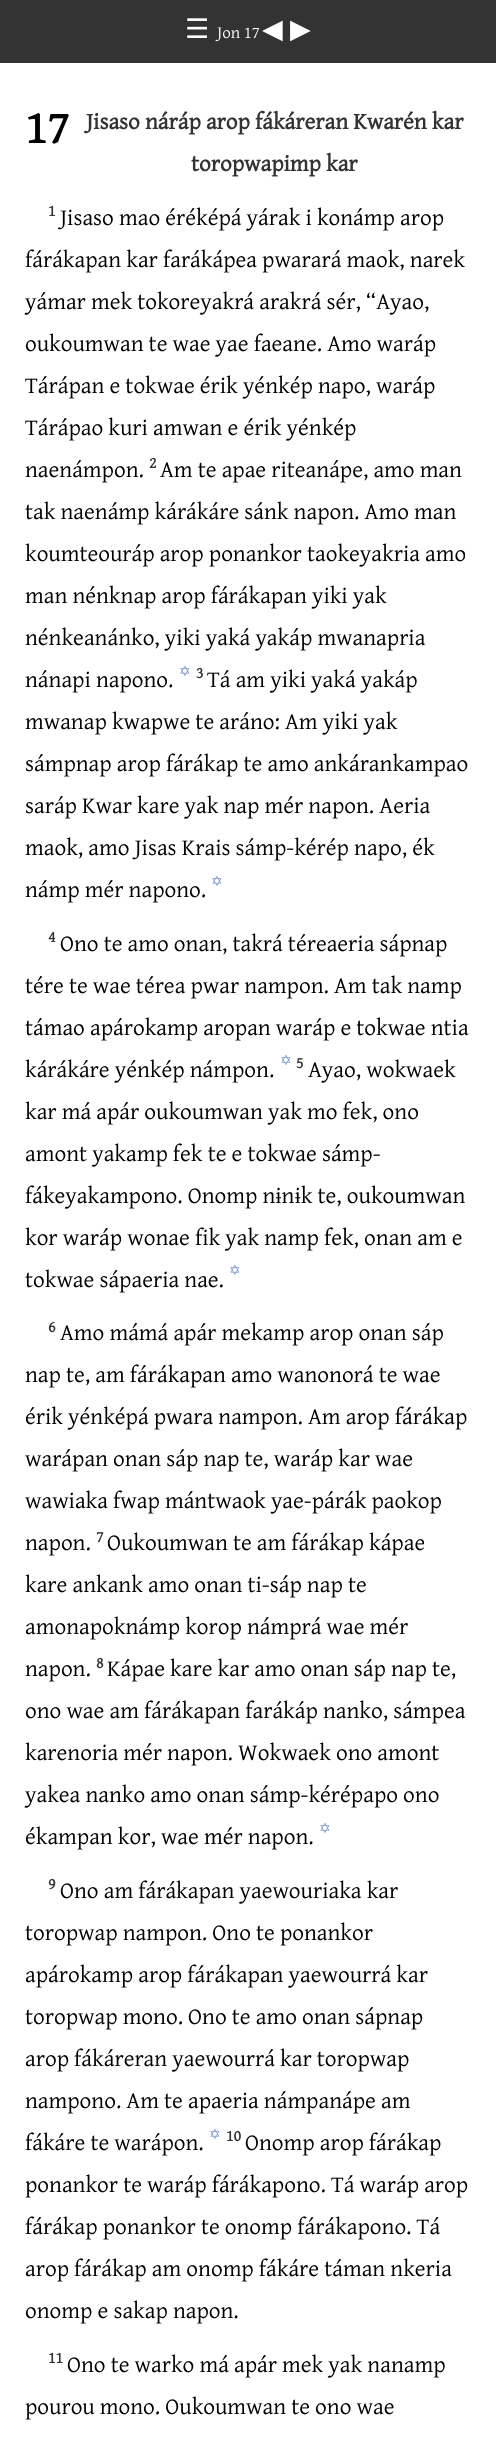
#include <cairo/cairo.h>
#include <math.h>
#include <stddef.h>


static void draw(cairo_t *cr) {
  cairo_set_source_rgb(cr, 1, 1, 1);
  cairo_paint(cr);
  cairo_set_source_rgb(cr, 51 / 255.0, 51 / 255.0, 51 / 255.0);
  cairo_rectangle(cr, 0, 0, 496, 63);
  cairo_fill(cr);
  cairo_select_font_face(cr, "DejaVu Sans", CAIRO_FONT_SLANT_NORMAL, CAIRO_FONT_WEIGHT_NORMAL);
  cairo_set_font_size(cr, 27);
  cairo_set_source_rgb(cr, 1, 1, 1);
  cairo_move_to(cr, 185, 38);
  cairo_show_text(cr, "☰");
  cairo_select_font_face(cr, "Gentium", CAIRO_FONT_SLANT_NORMAL, CAIRO_FONT_WEIGHT_NORMAL);
  cairo_set_font_size(cr, 17);
  cairo_move_to(cr, 217, 38);
  cairo_show_text(cr, "Jon 17");
  cairo_select_font_face(cr, "DejaVu Sans", CAIRO_FONT_SLANT_NORMAL, CAIRO_FONT_WEIGHT_NORMAL);
  cairo_set_font_size(cr, 27);
  cairo_move_to(cr, 262, 38);
  cairo_show_text(cr, "◀");
  cairo_move_to(cr, 290, 38);
  cairo_show_text(cr, "▶");
  cairo_select_font_face(cr, "Gentium", CAIRO_FONT_SLANT_NORMAL, CAIRO_FONT_WEIGHT_BOLD);
  cairo_set_font_size(cr, 47);
  cairo_set_source_rgb(cr, 0, 0, 0);
  cairo_move_to(cr, 25, 143);
  cairo_show_text(cr, "17");
  cairo_set_font_size(cr, 23.3);
  cairo_set_source_rgb(cr, 51 / 255.0, 51 / 255.0, 51 / 255.0);
  cairo_move_to(cr, 86, 129);
  cairo_show_text(cr, "Jisaso náráp arop fákáreran Kwarén kar");
  cairo_move_to(cr, 191, 171);
  cairo_show_text(cr, "toropwapimp kar");
  cairo_set_font_size(cr, 16);
  cairo_move_to(cr, 48, 216);
  cairo_show_text(cr, "1");
  cairo_select_font_face(cr, "Gentium", CAIRO_FONT_SLANT_NORMAL, CAIRO_FONT_WEIGHT_NORMAL);
  cairo_set_font_size(cr, 23.3);
  cairo_set_source_rgb(cr, 0, 0, 0);
  cairo_move_to(cr, 60, 225);
  cairo_show_text(cr, "Jisaso mao éréképá yárak i konámp arop");
  cairo_move_to(cr, 25, 267);
  cairo_show_text(cr, "fárákapan kar farákápea pwarará maok, narek");
  cairo_move_to(cr, 25, 309);
  cairo_show_text(cr, "yámar mek tokoreyakrá arakrá sér, “Ayao,");
  cairo_move_to(cr, 25, 351);
  cairo_show_text(cr, "oukoumwan te wae yae faeane. Amo waráp");
  cairo_move_to(cr, 25, 393);
  cairo_show_text(cr, "Tárápan e tokwae érik yénkép napo, waráp");
  cairo_move_to(cr, 25, 435);
  cairo_show_text(cr, "Tárápao kuri amwan e érik yénkép");
  cairo_move_to(cr, 25, 477);
  cairo_show_text(cr, "naenámpon.");
  cairo_select_font_face(cr, "Gentium", CAIRO_FONT_SLANT_NORMAL, CAIRO_FONT_WEIGHT_BOLD);
  cairo_set_font_size(cr, 16);
  cairo_set_source_rgb(cr, 51 / 255.0, 51 / 255.0, 51 / 255.0);
  cairo_move_to(cr, 149, 468);
  cairo_show_text(cr, "2");
  cairo_select_font_face(cr, "Gentium", CAIRO_FONT_SLANT_NORMAL, CAIRO_FONT_WEIGHT_NORMAL);
  cairo_set_font_size(cr, 23.3);
  cairo_set_source_rgb(cr, 0, 0, 0);
  cairo_move_to(cr, 160, 477);
  cairo_show_text(cr, "Am te apae riteanápe, amo man");
  cairo_move_to(cr, 25, 519);
  cairo_show_text(cr, "tak naenámp kárákáre sánk napon. Amo man");
  cairo_move_to(cr, 25, 561);
  cairo_show_text(cr, "koumteouráp arop ponankor taokeyakria amo");
  cairo_move_to(cr, 25, 603);
  cairo_show_text(cr, "man nénknap arop fárákapan yiki yak");
  cairo_move_to(cr, 25, 645);
  cairo_show_text(cr, "nénkeanánko, yiki yaká yakáp mwanapria");
  cairo_move_to(cr, 25, 687);
  cairo_show_text(cr, "nánapi napono.");
  cairo_select_font_face(cr, "DejaVu Sans", CAIRO_FONT_SLANT_NORMAL, CAIRO_FONT_WEIGHT_NORMAL);
  cairo_set_font_size(cr, 14);
  cairo_set_source_rgb(cr, 116 / 255.0, 145 / 255.0, 206 / 255.0);
  cairo_move_to(cr, 179, 676);
  cairo_show_text(cr, "✡");
  cairo_select_font_face(cr, "Gentium", CAIRO_FONT_SLANT_NORMAL, CAIRO_FONT_WEIGHT_BOLD);
  cairo_set_font_size(cr, 16);
  cairo_set_source_rgb(cr, 51 / 255.0, 51 / 255.0, 51 / 255.0);
  cairo_move_to(cr, 196, 678);
  cairo_show_text(cr, "3");
  cairo_select_font_face(cr, "Gentium", CAIRO_FONT_SLANT_NORMAL, CAIRO_FONT_WEIGHT_NORMAL);
  cairo_set_font_size(cr, 23.3);
  cairo_set_source_rgb(cr, 0, 0, 0);
  cairo_move_to(cr, 207, 687);
  cairo_show_text(cr, "Tá am yiki yaká yakáp");
  cairo_move_to(cr, 25, 729);
  cairo_show_text(cr, "mwanap kwapwe te aráno: Am yiki yak");
  cairo_move_to(cr, 25, 771);
  cairo_show_text(cr, "sámpnap arop fárákap te amo ankárankampao");
  cairo_move_to(cr, 25, 813);
  cairo_show_text(cr, "saráp Kwar kare yak nap mér napon. Aeria");
  cairo_move_to(cr, 25, 855);
  cairo_show_text(cr, "maok, amo Jisas Krais sámp-kérép napo, ék");
  cairo_move_to(cr, 25, 897);
  cairo_show_text(cr, "námp mér napono.");
  cairo_select_font_face(cr, "DejaVu Sans", CAIRO_FONT_SLANT_NORMAL, CAIRO_FONT_WEIGHT_NORMAL);
  cairo_set_font_size(cr, 14);
  cairo_set_source_rgb(cr, 116 / 255.0, 145 / 255.0, 206 / 255.0);
  cairo_move_to(cr, 211, 886);
  cairo_show_text(cr, "✡");
  cairo_select_font_face(cr, "Gentium", CAIRO_FONT_SLANT_NORMAL, CAIRO_FONT_WEIGHT_BOLD);
  cairo_set_font_size(cr, 16);
  cairo_set_source_rgb(cr, 51 / 255.0, 51 / 255.0, 51 / 255.0);
  cairo_move_to(cr, 48, 942);
  cairo_show_text(cr, "4");
  cairo_select_font_face(cr, "Gentium", CAIRO_FONT_SLANT_NORMAL, CAIRO_FONT_WEIGHT_NORMAL);
  cairo_set_font_size(cr, 23.3);
  cairo_set_source_rgb(cr, 0, 0, 0);
  cairo_move_to(cr, 60, 951);
  cairo_show_text(cr, "Ono te amo onan, takrá téreaeria sápnap");
  cairo_move_to(cr, 25, 993);
  cairo_show_text(cr, "tére te wae térea pwar nampon. Am tak namp");
  cairo_move_to(cr, 25, 1035);
  cairo_show_text(cr, "támao apárokamp aropan waráp e tokwae ntia");
  cairo_move_to(cr, 25, 1077);
  cairo_show_text(cr, "kárákáre yénkép námpon.");
  cairo_select_font_face(cr, "DejaVu Sans", CAIRO_FONT_SLANT_NORMAL, CAIRO_FONT_WEIGHT_NORMAL);
  cairo_set_font_size(cr, 14);
  cairo_set_source_rgb(cr, 116 / 255.0, 145 / 255.0, 206 / 255.0);
  cairo_move_to(cr, 280, 1065);
  cairo_show_text(cr, "✡");
  cairo_select_font_face(cr, "Gentium", CAIRO_FONT_SLANT_NORMAL, CAIRO_FONT_WEIGHT_BOLD);
  cairo_set_font_size(cr, 16);
  cairo_set_source_rgb(cr, 51 / 255.0, 51 / 255.0, 51 / 255.0);
  cairo_move_to(cr, 296, 1068);
  cairo_show_text(cr, "5");
  cairo_select_font_face(cr, "Gentium", CAIRO_FONT_SLANT_NORMAL, CAIRO_FONT_WEIGHT_NORMAL);
  cairo_set_font_size(cr, 23.3);
  cairo_set_source_rgb(cr, 0, 0, 0);
  cairo_move_to(cr, 308, 1077);
  cairo_show_text(cr, "Ayao, wokwaek");
  cairo_move_to(cr, 25, 1119);
  cairo_show_text(cr, "kar má apár oukoumwan yak mo fek, ono");
  cairo_move_to(cr, 25, 1161);
  cairo_show_text(cr, "amont yakamp fek te e tokwae sámp-");
  cairo_move_to(cr, 25, 1203);
  cairo_show_text(cr, "fákeyakampono. Onomp nɨnɨk te, oukoumwan");
  cairo_move_to(cr, 25, 1245);
  cairo_show_text(cr, "kor waráp wonae fik yak namp fek, onan am e");
  cairo_move_to(cr, 25, 1287);
  cairo_show_text(cr, "tokwae sápaeria nae.");
  cairo_select_font_face(cr, "DejaVu Sans", CAIRO_FONT_SLANT_NORMAL, CAIRO_FONT_WEIGHT_NORMAL);
  cairo_set_font_size(cr, 14);
  cairo_set_source_rgb(cr, 116 / 255.0, 145 / 255.0, 206 / 255.0);
  cairo_move_to(cr, 229, 1275);
  cairo_show_text(cr, "✡");
  cairo_select_font_face(cr, "Gentium", CAIRO_FONT_SLANT_NORMAL, CAIRO_FONT_WEIGHT_BOLD);
  cairo_set_font_size(cr, 16);
  cairo_set_source_rgb(cr, 51 / 255.0, 51 / 255.0, 51 / 255.0);
  cairo_move_to(cr, 48, 1332);
  cairo_show_text(cr, "6");
  cairo_select_font_face(cr, "Gentium", CAIRO_FONT_SLANT_NORMAL, CAIRO_FONT_WEIGHT_NORMAL);
  cairo_set_font_size(cr, 23.3);
  cairo_set_source_rgb(cr, 0, 0, 0);
  cairo_move_to(cr, 60, 1340);
  cairo_show_text(cr, "Amo mámá apár mekamp arop onan sáp");
  cairo_move_to(cr, 25, 1382);
  cairo_show_text(cr, "nap te, am fárákapan amo wanonorá te wae");
  cairo_move_to(cr, 25, 1424);
  cairo_show_text(cr, "érik yénképá pwara nampon. Am arop fárákap");
  cairo_move_to(cr, 25, 1466);
  cairo_show_text(cr, "warápan onan sáp nap te, waráp kar wae");
  cairo_move_to(cr, 25, 1508);
  cairo_show_text(cr, "wawiaka fwap mántwaok yae-párák paokop");
  cairo_move_to(cr, 25, 1550);
  cairo_show_text(cr, "napon.");
  cairo_select_font_face(cr, "Gentium", CAIRO_FONT_SLANT_NORMAL, CAIRO_FONT_WEIGHT_BOLD);
  cairo_set_font_size(cr, 16);
  cairo_set_source_rgb(cr, 51 / 255.0, 51 / 255.0, 51 / 255.0);
  cairo_move_to(cr, 96, 1542);
  cairo_show_text(cr, "7");
  cairo_select_font_face(cr, "Gentium", CAIRO_FONT_SLANT_NORMAL, CAIRO_FONT_WEIGHT_NORMAL);
  cairo_set_font_size(cr, 23.3);
  cairo_set_source_rgb(cr, 0, 0, 0);
  cairo_move_to(cr, 107, 1550);
  cairo_show_text(cr, "Oukoumwan te am fárákap kápae");
  cairo_move_to(cr, 25, 1592);
  cairo_show_text(cr, "kare ankank amo onan ti-sáp nap te");
  cairo_move_to(cr, 25, 1634);
  cairo_show_text(cr, "amonapoknámp korop námprá wae mér");
  cairo_move_to(cr, 25, 1676);
  cairo_show_text(cr, "napon.");
  cairo_select_font_face(cr, "Gentium", CAIRO_FONT_SLANT_NORMAL, CAIRO_FONT_WEIGHT_BOLD);
  cairo_set_font_size(cr, 16);
  cairo_set_source_rgb(cr, 51 / 255.0, 51 / 255.0, 51 / 255.0);
  cairo_move_to(cr, 96, 1668);
  cairo_show_text(cr, "8");
  cairo_select_font_face(cr, "Gentium", CAIRO_FONT_SLANT_NORMAL, CAIRO_FONT_WEIGHT_NORMAL);
  cairo_set_font_size(cr, 23.3);
  cairo_set_source_rgb(cr, 0, 0, 0);
  cairo_move_to(cr, 107, 1676);
  cairo_show_text(cr, "Kápae kare kar amo onan sáp nap te,");
  cairo_move_to(cr, 25, 1718);
  cairo_show_text(cr, "ono wae am fárákapan farákáp nanko, sámpea");
  cairo_move_to(cr, 25, 1760);
  cairo_show_text(cr, "karenoria mér napon. Wokwaek ono amont");
  cairo_move_to(cr, 25, 1802);
  cairo_show_text(cr, "yakea nanko amo onan sámp-kérépapo ono");
  cairo_move_to(cr, 25, 1844);
  cairo_show_text(cr, "ékampan kor, wae mér napon.");
  cairo_select_font_face(cr, "DejaVu Sans", CAIRO_FONT_SLANT_NORMAL, CAIRO_FONT_WEIGHT_NORMAL);
  cairo_set_font_size(cr, 14);
  cairo_set_source_rgb(cr, 116 / 255.0, 145 / 255.0, 206 / 255.0);
  cairo_move_to(cr, 319, 1833);
  cairo_show_text(cr, "✡");
  cairo_select_font_face(cr, "Gentium", CAIRO_FONT_SLANT_NORMAL, CAIRO_FONT_WEIGHT_BOLD);
  cairo_set_font_size(cr, 16);
  cairo_set_source_rgb(cr, 51 / 255.0, 51 / 255.0, 51 / 255.0);
  cairo_move_to(cr, 48, 1889);
  cairo_show_text(cr, "9");
  cairo_select_font_face(cr, "Gentium", CAIRO_FONT_SLANT_NORMAL, CAIRO_FONT_WEIGHT_NORMAL);
  cairo_set_font_size(cr, 23.3);
  cairo_set_source_rgb(cr, 0, 0, 0);
  cairo_move_to(cr, 60, 1898);
  cairo_show_text(cr, "Ono am fárákapan yaewouriaka kar");
  cairo_move_to(cr, 25, 1940);
  cairo_show_text(cr, "toropwap nampon. Ono te ponankor");
  cairo_move_to(cr, 25, 1982);
  cairo_show_text(cr, "apárokamp arop fárákapan yaewourrá kar");
  cairo_move_to(cr, 25, 2024);
  cairo_show_text(cr, "toropwap mono. Ono te amo onan sápnap");
  cairo_move_to(cr, 25, 2066);
  cairo_show_text(cr, "arop fákáreran yaewourrá kar toropwap");
  cairo_move_to(cr, 25, 2108);
  cairo_show_text(cr, "nampono. Am te apaeria námpanápe am");
  cairo_move_to(cr, 25, 2150);
  cairo_show_text(cr, "fákáre te warápon.");
  cairo_select_font_face(cr, "DejaVu Sans", CAIRO_FONT_SLANT_NORMAL, CAIRO_FONT_WEIGHT_NORMAL);
  cairo_set_font_size(cr, 14);
  cairo_set_source_rgb(cr, 116 / 255.0, 145 / 255.0, 206 / 255.0);
  cairo_move_to(cr, 209, 2139);
  cairo_show_text(cr, "✡");
  cairo_select_font_face(cr, "Gentium", CAIRO_FONT_SLANT_NORMAL, CAIRO_FONT_WEIGHT_BOLD);
  cairo_set_font_size(cr, 16);
  cairo_set_source_rgb(cr, 51 / 255.0, 51 / 255.0, 51 / 255.0);
  cairo_move_to(cr, 226, 2141);
  cairo_show_text(cr, "10");
  cairo_select_font_face(cr, "Gentium", CAIRO_FONT_SLANT_NORMAL, CAIRO_FONT_WEIGHT_NORMAL);
  cairo_set_font_size(cr, 23.3);
  cairo_set_source_rgb(cr, 0, 0, 0);
  cairo_move_to(cr, 245, 2150);
  cairo_show_text(cr, "Onomp arop fárákap");
  cairo_move_to(cr, 25, 2192);
  cairo_show_text(cr, "ponankor te waráp fárákapono. Tá waráp arop");
  cairo_move_to(cr, 25, 2234);
  cairo_show_text(cr, "fárákap ponankor te onomp fárákapono. Tá");
  cairo_move_to(cr, 25, 2276);
  cairo_show_text(cr, "arop fárákap am onomp fákáre táman nkeria");
  cairo_move_to(cr, 25, 2318);
  cairo_show_text(cr, "onomp e sakap napon.");
  cairo_select_font_face(cr, "Gentium", CAIRO_FONT_SLANT_NORMAL, CAIRO_FONT_WEIGHT_BOLD);
  cairo_set_font_size(cr, 16);
  cairo_set_source_rgb(cr, 51 / 255.0, 51 / 255.0, 51 / 255.0);
  cairo_move_to(cr, 48, 2363);
  cairo_show_text(cr, "11");
  cairo_select_font_face(cr, "Gentium", CAIRO_FONT_SLANT_NORMAL, CAIRO_FONT_WEIGHT_NORMAL);
  cairo_set_font_size(cr, 23.3);
  cairo_set_source_rgb(cr, 0, 0, 0);
  cairo_move_to(cr, 67, 2372);
  cairo_show_text(cr, "Ono te warko má apár mek yak nanamp");
  cairo_move_to(cr, 25, 2414);
  cairo_show_text(cr, "pourou mono. Oukoumwan te ono wae");
}

int main(void) {
  cairo_surface_t *surface = cairo_image_surface_create(CAIRO_FORMAT_RGB24, 496, 2446);
  cairo_t *cr = cairo_create(surface);
  cairo_font_options_t *options = cairo_font_options_create();
  cairo_font_options_set_hint_metrics(options, CAIRO_HINT_METRICS_OFF);
  cairo_font_options_set_hint_style(options, CAIRO_HINT_STYLE_NONE);
  cairo_set_font_options(cr, options);
  cairo_set_miter_limit(cr, 4);
  draw(cr);
  cairo_surface_write_to_png(surface, "out.png");
  cairo_font_options_destroy(options);
  cairo_destroy(cr);
  cairo_surface_destroy(surface);
  return 0;
}
